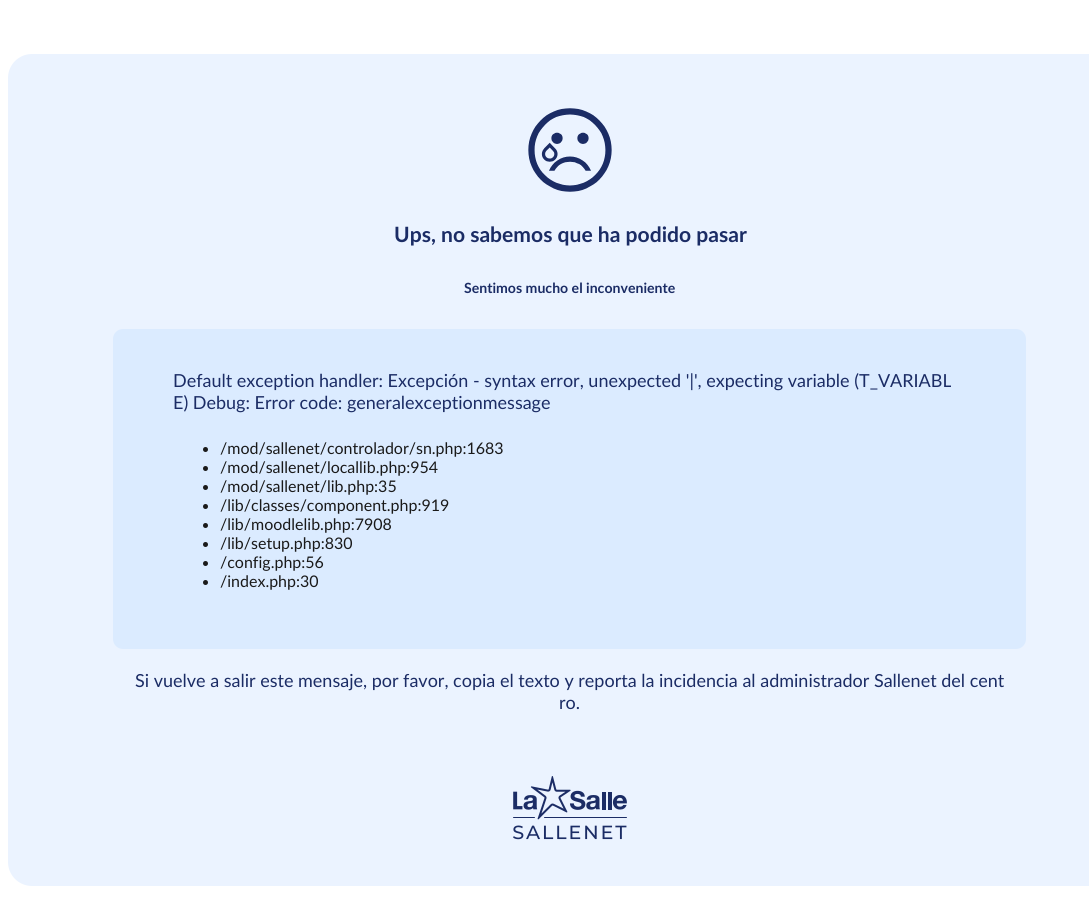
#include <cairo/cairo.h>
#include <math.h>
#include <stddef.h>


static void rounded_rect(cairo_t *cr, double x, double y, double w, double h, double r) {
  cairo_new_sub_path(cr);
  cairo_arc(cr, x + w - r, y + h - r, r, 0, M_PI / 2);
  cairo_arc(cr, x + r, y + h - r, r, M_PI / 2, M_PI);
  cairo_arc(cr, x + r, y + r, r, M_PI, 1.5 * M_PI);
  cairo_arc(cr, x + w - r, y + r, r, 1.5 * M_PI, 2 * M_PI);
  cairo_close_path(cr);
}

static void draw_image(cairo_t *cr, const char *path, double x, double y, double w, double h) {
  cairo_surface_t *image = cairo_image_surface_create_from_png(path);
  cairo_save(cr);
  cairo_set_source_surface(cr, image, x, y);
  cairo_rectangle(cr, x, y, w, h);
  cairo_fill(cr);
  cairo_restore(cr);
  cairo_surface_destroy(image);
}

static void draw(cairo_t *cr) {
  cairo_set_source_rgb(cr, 1, 1, 1);
  cairo_paint(cr);
  cairo_set_source_rgb(cr, 235 / 255.0, 243 / 255.0, 1);
  rounded_rect(cr, 8, 54, 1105, 832, 24);
  cairo_fill(cr);
  draw_image(cr, "images/1.png", 528, 108, 84, 84);
  cairo_set_source_rgb(cr, 219 / 255.0, 235 / 255.0, 1);
  rounded_rect(cr, 113, 329, 913, 320, 10);
  cairo_fill(cr);
  cairo_set_source_rgb(cr, 26 / 255.0, 26 / 255.0, 26 / 255.0);
  cairo_arc(cr, 205.5, 449.5, 2.5, 0, 2 * M_PI);
  cairo_fill(cr);
  cairo_arc(cr, 205.5, 468.5, 2.5, 0, 2 * M_PI);
  cairo_fill(cr);
  cairo_arc(cr, 205.5, 487.5, 2.5, 0, 2 * M_PI);
  cairo_fill(cr);
  cairo_arc(cr, 205.5, 506.5, 2.5, 0, 2 * M_PI);
  cairo_fill(cr);
  cairo_arc(cr, 205.5, 525.5, 2.5, 0, 2 * M_PI);
  cairo_fill(cr);
  cairo_arc(cr, 205.5, 544.5, 2.5, 0, 2 * M_PI);
  cairo_fill(cr);
  cairo_arc(cr, 205.5, 563.5, 2.5, 0, 2 * M_PI);
  cairo_fill(cr);
  cairo_arc(cr, 205.5, 582.5, 2.5, 0, 2 * M_PI);
  cairo_fill(cr);
  draw_image(cr, "images/2.png", 513, 776, 114, 64);
  cairo_select_font_face(cr, "Lato", CAIRO_FONT_SLANT_NORMAL, CAIRO_FONT_WEIGHT_BOLD);
  cairo_set_font_size(cr, 21.1);
  cairo_set_source_rgb(cr, 27 / 255.0, 44 / 255.0, 101 / 255.0);
  cairo_move_to(cr, 394, 242);
  cairo_show_text(cr, "Ups, no sabemos que ha podido pasar");
  cairo_set_font_size(cr, 14.1);
  cairo_move_to(cr, 464, 293);
  cairo_show_text(cr, "Sentimos mucho el inconveniente");
  cairo_select_font_face(cr, "Lato", CAIRO_FONT_SLANT_NORMAL, CAIRO_FONT_WEIGHT_NORMAL);
  cairo_set_font_size(cr, 18);
  cairo_move_to(cr, 173, 387);
  cairo_show_text(cr, "Default exception handler: Excepción - syntax error, unexpected '|', expecting variable (T_VARIABL");
  cairo_move_to(cr, 173, 409);
  cairo_show_text(cr, "E) Debug: Error code: generalexceptionmessage");
  cairo_set_font_size(cr, 16);
  cairo_set_source_rgb(cr, 26 / 255.0, 26 / 255.0, 26 / 255.0);
  cairo_move_to(cr, 220, 454);
  cairo_show_text(cr, "/mod/sallenet/controlador/sn.php:1683");
  cairo_move_to(cr, 220, 473);
  cairo_show_text(cr, "/mod/sallenet/locallib.php:954");
  cairo_move_to(cr, 220, 492);
  cairo_show_text(cr, "/mod/sallenet/lib.php:35");
  cairo_move_to(cr, 220, 511);
  cairo_show_text(cr, "/lib/classes/component.php:919");
  cairo_move_to(cr, 220, 530);
  cairo_show_text(cr, "/lib/moodlelib.php:7908");
  cairo_move_to(cr, 220, 549);
  cairo_show_text(cr, "/lib/setup.php:830");
  cairo_move_to(cr, 220, 568);
  cairo_show_text(cr, "/config.php:56");
  cairo_move_to(cr, 220, 587);
  cairo_show_text(cr, "/index.php:30");
  cairo_set_font_size(cr, 18);
  cairo_set_source_rgb(cr, 27 / 255.0, 44 / 255.0, 101 / 255.0);
  cairo_move_to(cr, 135, 687);
  cairo_show_text(cr, "Si vuelve a salir este mensaje, por favor, copia el texto y reporta la incidencia al administrador Sallenet del cent");
  cairo_move_to(cr, 559, 709);
  cairo_show_text(cr, "ro.");
}

int main(void) {
  cairo_surface_t *surface = cairo_image_surface_create(CAIRO_FORMAT_RGB24, 1089, 903);
  cairo_t *cr = cairo_create(surface);
  cairo_font_options_t *options = cairo_font_options_create();
  cairo_font_options_set_hint_metrics(options, CAIRO_HINT_METRICS_OFF);
  cairo_font_options_set_hint_style(options, CAIRO_HINT_STYLE_NONE);
  cairo_set_font_options(cr, options);
  cairo_set_miter_limit(cr, 4);
  draw(cr);
  cairo_surface_write_to_png(surface, "out.png");
  cairo_font_options_destroy(options);
  cairo_destroy(cr);
  cairo_surface_destroy(surface);
  return 0;
}
